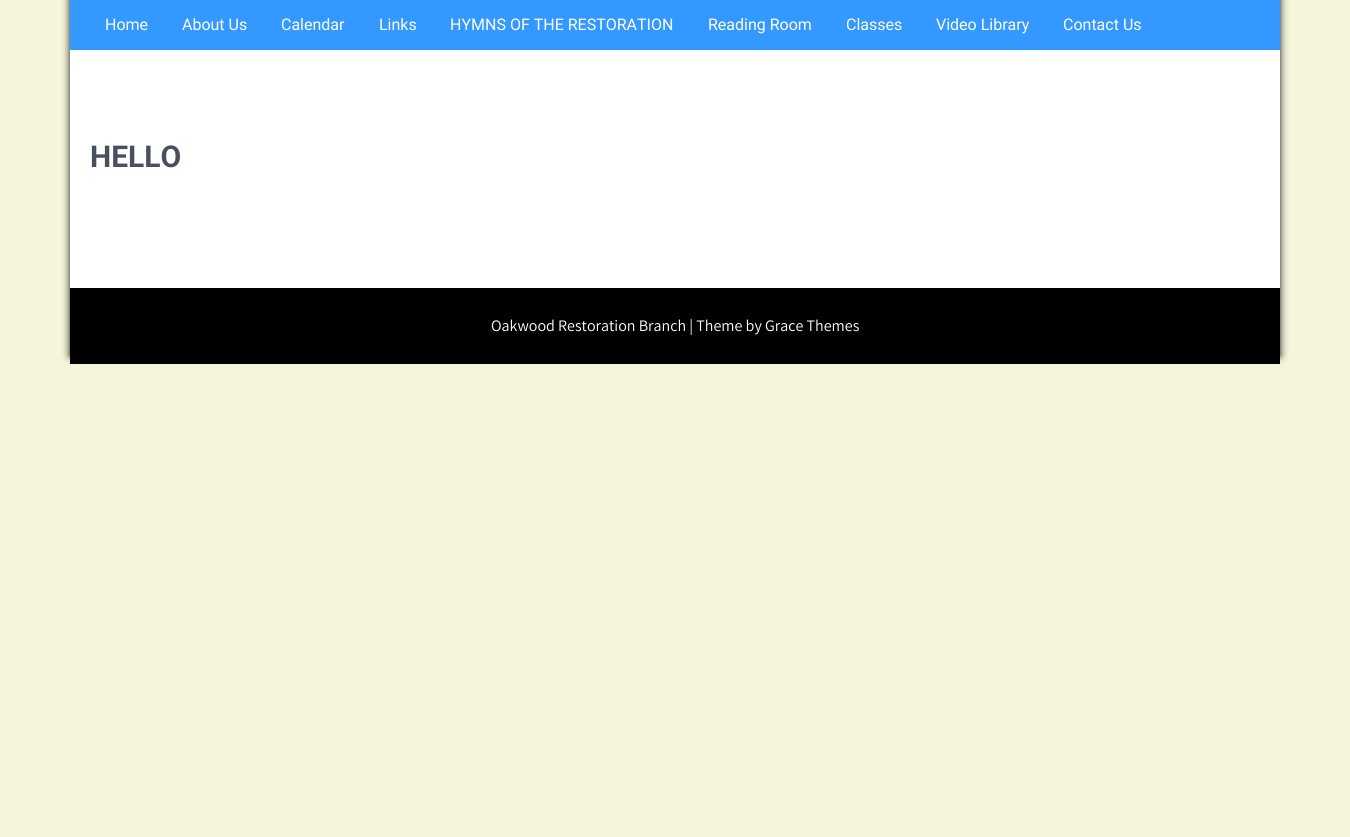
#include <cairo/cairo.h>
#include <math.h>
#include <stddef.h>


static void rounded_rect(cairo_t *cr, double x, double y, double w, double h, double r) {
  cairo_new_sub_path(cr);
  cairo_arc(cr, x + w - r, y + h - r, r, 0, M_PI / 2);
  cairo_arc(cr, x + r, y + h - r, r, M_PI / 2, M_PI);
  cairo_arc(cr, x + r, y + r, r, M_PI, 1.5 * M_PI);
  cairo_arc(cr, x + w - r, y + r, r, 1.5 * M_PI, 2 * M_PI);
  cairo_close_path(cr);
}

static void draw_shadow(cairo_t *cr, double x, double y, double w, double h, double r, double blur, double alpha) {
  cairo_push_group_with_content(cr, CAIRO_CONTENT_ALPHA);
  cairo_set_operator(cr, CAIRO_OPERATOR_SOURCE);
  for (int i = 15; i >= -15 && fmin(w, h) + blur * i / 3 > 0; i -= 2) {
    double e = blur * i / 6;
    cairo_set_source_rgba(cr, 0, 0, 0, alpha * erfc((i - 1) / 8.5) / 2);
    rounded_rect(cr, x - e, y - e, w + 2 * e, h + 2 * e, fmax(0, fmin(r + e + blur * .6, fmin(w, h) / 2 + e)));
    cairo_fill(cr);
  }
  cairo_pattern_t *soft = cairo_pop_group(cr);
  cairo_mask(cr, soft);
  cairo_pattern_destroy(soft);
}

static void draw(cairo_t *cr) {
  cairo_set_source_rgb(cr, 245 / 255.0, 245 / 255.0, 219 / 255.0);
  cairo_paint(cr);
  cairo_set_source_rgb(cr, 17 / 255.0, 17 / 255.0, 17 / 255.0);
  draw_shadow(cr, 70, -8, 1210, 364, 0, 4, 1);
  cairo_set_source_rgb(cr, 1, 1, 1);
  cairo_rectangle(cr, 70, 50, 1210, 238);
  cairo_fill(cr);
  cairo_set_source_rgb(cr, 51 / 255.0, 152 / 255.0, 1);
  cairo_rectangle(cr, 70, 0, 1210, 50);
  cairo_fill(cr);
  cairo_set_source_rgb(cr, 0, 0, 0);
  cairo_rectangle(cr, 70, 288, 1210, 76);
  cairo_fill(cr);
  cairo_select_font_face(cr, "Roboto", CAIRO_FONT_SLANT_NORMAL, CAIRO_FONT_WEIGHT_NORMAL);
  cairo_set_font_size(cr, 16);
  cairo_set_source_rgb(cr, 1, 1, 1);
  cairo_move_to(cr, 105, 30);
  cairo_show_text(cr, "Home");
  cairo_move_to(cr, 182, 30);
  cairo_show_text(cr, "About Us");
  cairo_move_to(cr, 281, 30);
  cairo_show_text(cr, "Calendar");
  cairo_move_to(cr, 379, 30);
  cairo_show_text(cr, "Links");
  cairo_move_to(cr, 450, 30);
  cairo_show_text(cr, "HYMNS OF THE RESTORATION");
  cairo_move_to(cr, 708, 30);
  cairo_show_text(cr, "Reading Room");
  cairo_move_to(cr, 846, 30);
  cairo_show_text(cr, "Classes");
  cairo_move_to(cr, 936, 30);
  cairo_show_text(cr, "Video Library");
  cairo_move_to(cr, 1063, 30);
  cairo_show_text(cr, "Contact Us");
  cairo_select_font_face(cr, "Roboto", CAIRO_FONT_SLANT_NORMAL, CAIRO_FONT_WEIGHT_BOLD);
  cairo_set_font_size(cr, 30);
  cairo_set_source_rgb(cr, 72 / 255.0, 79 / 255.0, 94 / 255.0);
  cairo_move_to(cr, 90, 167);
  cairo_show_text(cr, "HELLO");
  cairo_select_font_face(cr, "Assistant", CAIRO_FONT_SLANT_NORMAL, CAIRO_FONT_WEIGHT_NORMAL);
  cairo_set_font_size(cr, 16);
  cairo_set_source_rgb(cr, 1, 1, 1);
  cairo_move_to(cr, 491, 331);
  cairo_show_text(cr, "Oakwood Restoration Branch | Theme by Grace Themes");
}

int main(void) {
  cairo_surface_t *surface = cairo_image_surface_create(CAIRO_FORMAT_RGB24, 1350, 837);
  cairo_t *cr = cairo_create(surface);
  cairo_font_options_t *options = cairo_font_options_create();
  cairo_font_options_set_hint_metrics(options, CAIRO_HINT_METRICS_OFF);
  cairo_font_options_set_hint_style(options, CAIRO_HINT_STYLE_NONE);
  cairo_set_font_options(cr, options);
  cairo_set_miter_limit(cr, 4);
  draw(cr);
  cairo_surface_write_to_png(surface, "out.png");
  cairo_font_options_destroy(options);
  cairo_destroy(cr);
  cairo_surface_destroy(surface);
  return 0;
}
